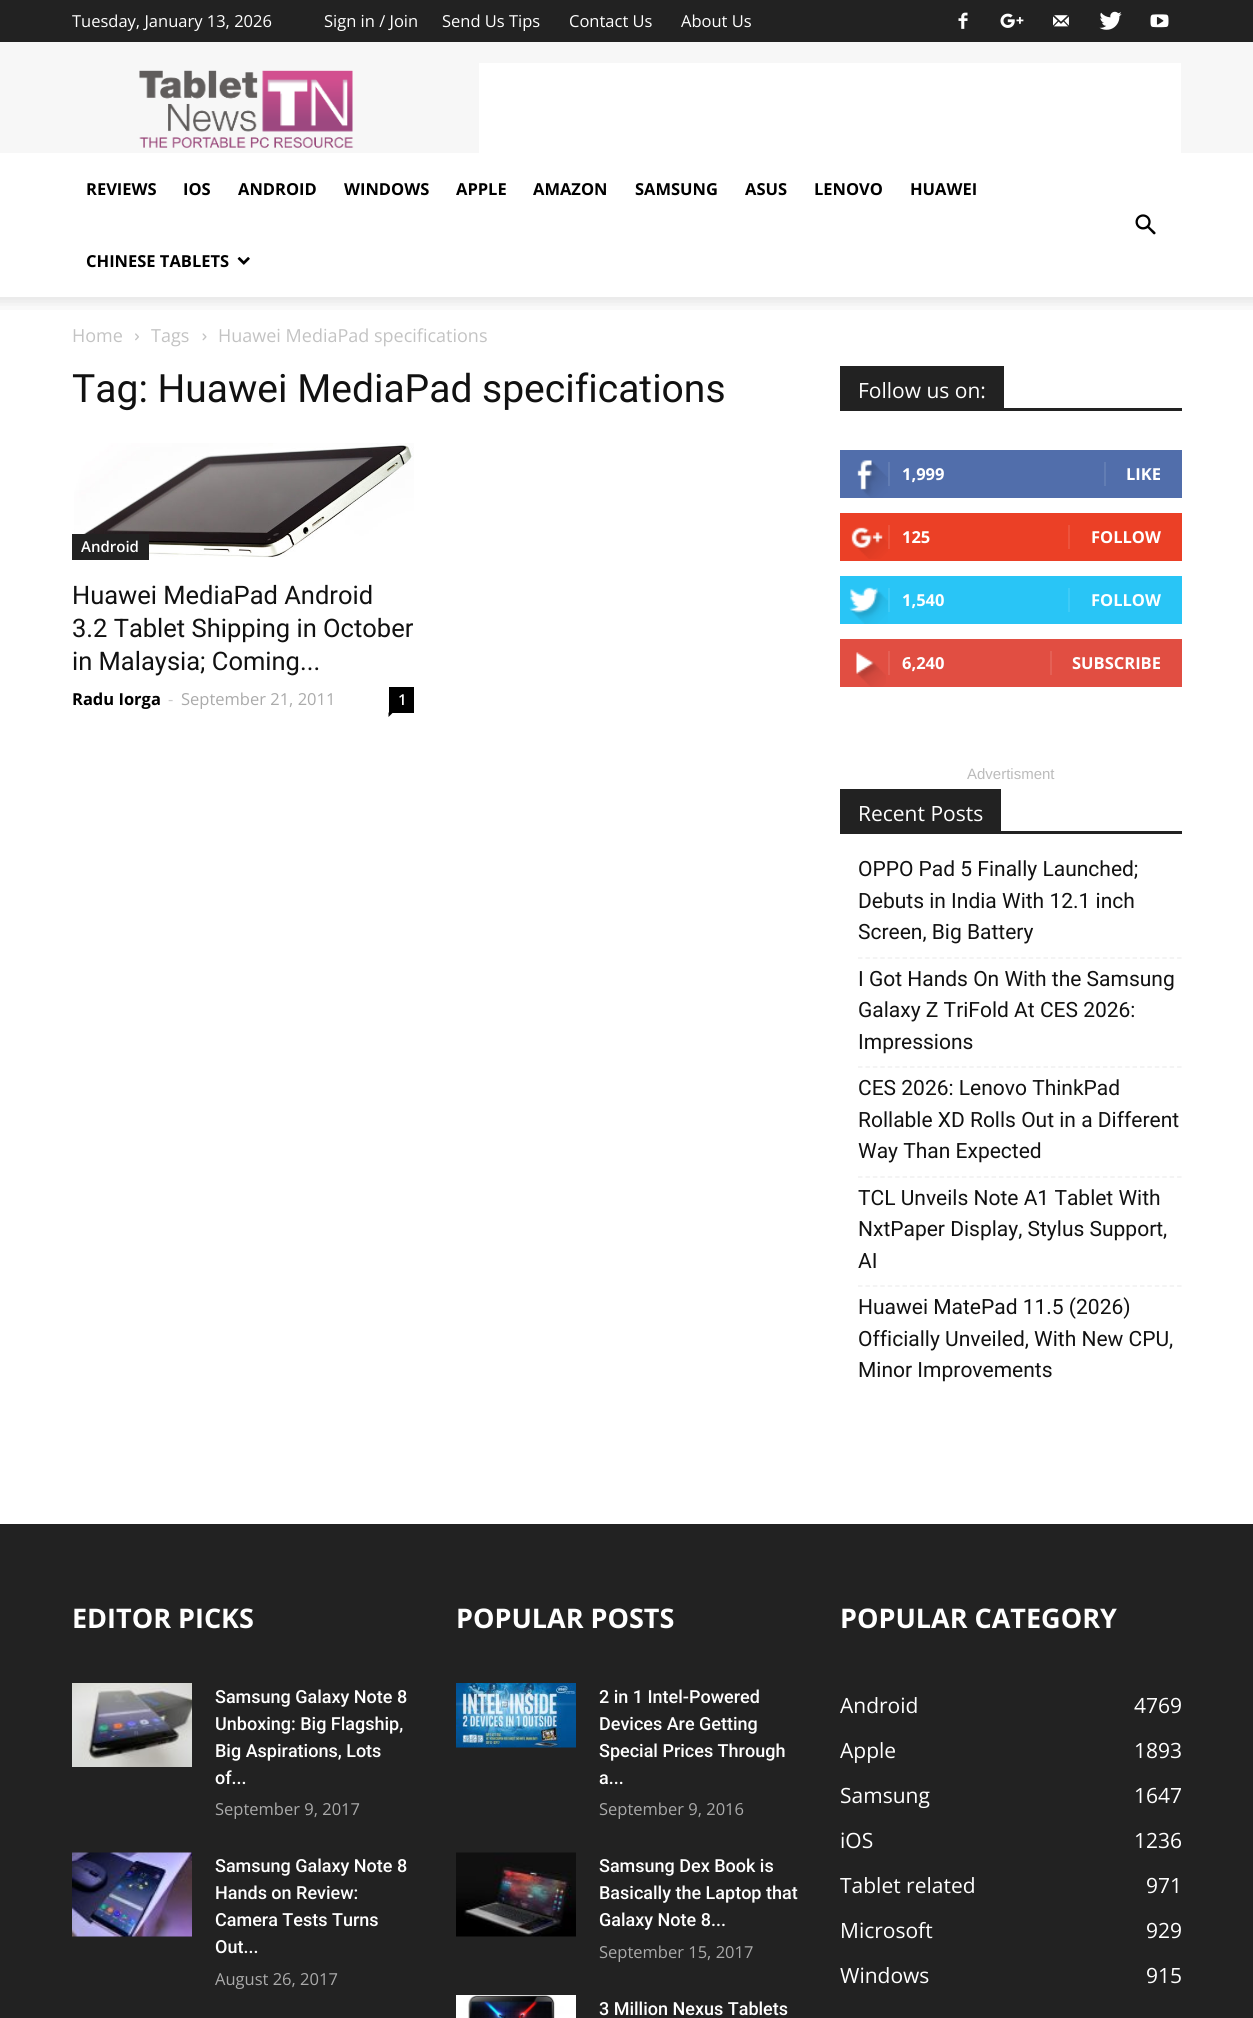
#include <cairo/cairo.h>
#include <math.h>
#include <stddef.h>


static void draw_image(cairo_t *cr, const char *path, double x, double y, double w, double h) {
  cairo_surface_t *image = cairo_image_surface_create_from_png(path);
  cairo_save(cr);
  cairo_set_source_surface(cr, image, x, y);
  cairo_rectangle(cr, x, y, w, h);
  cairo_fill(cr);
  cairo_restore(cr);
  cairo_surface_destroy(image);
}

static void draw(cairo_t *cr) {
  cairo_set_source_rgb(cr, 1, 1, 1);
  cairo_paint(cr);
  cairo_set_source_rgb(cr, 34 / 255.0, 34 / 255.0, 34 / 255.0);
  cairo_rectangle(cr, 0, 0, 1253, 42);
  cairo_fill(cr);
  draw_image(cr, "images/1.png", 958, 12, 10, 17);
  draw_image(cr, "images/2.png", 1000, 13, 24, 15);
  draw_image(cr, "images/3.png", 1053, 15, 16, 12);
  draw_image(cr, "images/4.png", 1099, 11, 23, 19);
  draw_image(cr, "images/5.png", 1150, 14, 19, 14);
  cairo_set_source_rgb(cr, 247 / 255.0, 247 / 255.0, 247 / 255.0);
  cairo_rectangle(cr, 0, 42, 1253, 111);
  cairo_fill(cr);
  draw_image(cr, "images/6.png", 139, 70, 215, 79);
  cairo_set_source_rgb(cr, 1, 1, 1);
  cairo_rectangle(cr, 479, 63, 702, 90);
  cairo_fill(cr);
  draw_image(cr, "images/7.png", 237, 257, 13, 8);
  draw_image(cr, "images/8.png", 1135, 214, 21, 21);
  draw_image(cr, "images/9.png", 0, 297, 1253, 13);
  draw_image(cr, "images/10.png", 135, 333, 4, 8);
  draw_image(cr, "images/11.png", 202, 333, 5, 8);
  draw_image(cr, "images/12.png", 74, 443, 340, 115);
  cairo_set_source_rgb(cr, 34 / 255.0, 34 / 255.0, 34 / 255.0);
  cairo_rectangle(cr, 72, 534, 77, 26);
  cairo_fill(cr);
  cairo_set_source_rgb(cr, 0, 0, 0);
  cairo_rectangle(cr, 389, 687, 25, 26);
  cairo_fill(cr);
  cairo_new_path(cr);
  cairo_move_to(cr, 388.5, 712.5);
  cairo_line_to(cr, 393, 712.5);
  cairo_line_to(cr, 388.5, 717);
  cairo_close_path(cr);
  cairo_fill(cr);
  cairo_set_source_rgb(cr, 34 / 255.0, 34 / 255.0, 34 / 255.0);
  cairo_rectangle(cr, 840, 408, 342, 3);
  cairo_fill(cr);
  cairo_rectangle(cr, 840, 366, 164, 42);
  cairo_fill(cr);
  cairo_set_source_rgb(cr, 81 / 255.0, 110 / 255.0, 171 / 255.0);
  cairo_rectangle(cr, 840, 450, 342, 48);
  cairo_fill(cr);
  draw_image(cr, "images/13.png", 857, 460, 31, 38);
  cairo_set_source_rgb(cr, 98 / 255.0, 125 / 255.0, 179 / 255.0);
  cairo_rectangle(cr, 888, 462, 2, 24);
  cairo_fill(cr);
  cairo_rectangle(cr, 1104, 462, 2, 24);
  cairo_fill(cr);
  cairo_set_source_rgb(cr, 235 / 255.0, 64 / 255.0, 38 / 255.0);
  cairo_rectangle(cr, 840, 513, 342, 48);
  cairo_fill(cr);
  draw_image(cr, "images/14.png", 851, 527, 37, 32);
  cairo_set_source_rgb(cr, 237 / 255.0, 83 / 255.0, 60 / 255.0);
  cairo_rectangle(cr, 888, 525, 2, 24);
  cairo_fill(cr);
  cairo_rectangle(cr, 1068, 525, 2, 24);
  cairo_fill(cr);
  cairo_set_source_rgb(cr, 41 / 255.0, 197 / 255.0, 246 / 255.0);
  cairo_rectangle(cr, 840, 576, 342, 48);
  cairo_fill(cr);
  draw_image(cr, "images/15.png", 849, 587, 39, 37);
  cairo_set_source_rgb(cr, 62 / 255.0, 203 / 255.0, 247 / 255.0);
  cairo_rectangle(cr, 888, 588, 2, 24);
  cairo_fill(cr);
  cairo_rectangle(cr, 1068, 588, 2, 24);
  cairo_fill(cr);
  cairo_set_source_rgb(cr, 225 / 255.0, 78 / 255.0, 66 / 255.0);
  cairo_rectangle(cr, 840, 639, 342, 48);
  cairo_fill(cr);
  draw_image(cr, "images/16.png", 856, 652, 30, 35);
  cairo_set_source_rgb(cr, 228 / 255.0, 96 / 255.0, 85 / 255.0);
  cairo_rectangle(cr, 888, 651, 2, 24);
  cairo_fill(cr);
  cairo_rectangle(cr, 1050, 651, 2, 24);
  cairo_fill(cr);
  cairo_set_source_rgb(cr, 34 / 255.0, 34 / 255.0, 34 / 255.0);
  cairo_rectangle(cr, 840, 831, 342, 3);
  cairo_fill(cr);
  cairo_rectangle(cr, 840, 789, 161, 42);
  cairo_fill(cr);
  cairo_new_path(cr);
  cairo_move_to(cr, 858, 958);
  cairo_line_to(cr, 1182, 958);
  cairo_set_source_rgb(cr, 241 / 255.0, 241 / 255.0, 241 / 255.0);
  cairo_set_line_width(cr, 1.5);
  cairo_set_dash(cr, (double[]){4.5, 2.92}, 2, 0);
  cairo_stroke(cr);
  cairo_new_path(cr);
  cairo_move_to(cr, 858, 1067);
  cairo_line_to(cr, 1182, 1067);
  cairo_stroke(cr);
  cairo_new_path(cr);
  cairo_move_to(cr, 858, 1177);
  cairo_line_to(cr, 1182, 1177);
  cairo_stroke(cr);
  cairo_new_path(cr);
  cairo_move_to(cr, 858, 1286);
  cairo_line_to(cr, 1182, 1286);
  cairo_stroke(cr);
  cairo_set_source_rgb(cr, 34 / 255.0, 34 / 255.0, 34 / 255.0);
  cairo_rectangle(cr, 0, 1524, 1253, 494);
  cairo_fill(cr);
  draw_image(cr, "images/17.png", 72, 1683, 120, 84);
  draw_image(cr, "images/18.png", 72, 1852, 120, 85);
  draw_image(cr, "images/19.png", 456, 1683, 120, 65);
  draw_image(cr, "images/20.png", 456, 1852, 120, 85);
  draw_image(cr, "images/21.png", 456, 1995, 120, 23);
  cairo_select_font_face(cr, "Open Sans", CAIRO_FONT_SLANT_NORMAL, CAIRO_FONT_WEIGHT_NORMAL);
  cairo_set_font_size(cr, 16.5);
  cairo_set_source_rgb(cr, 1, 1, 1);
  cairo_move_to(cr, 72, 27);
  cairo_show_text(cr, "Tuesday, January 13, 2026");
  cairo_move_to(cr, 324, 27);
  cairo_show_text(cr, "Sign in / Join");
  cairo_move_to(cr, 442, 27);
  cairo_show_text(cr, "Send Us Tips");
  cairo_move_to(cr, 569, 27);
  cairo_show_text(cr, "Contact Us");
  cairo_move_to(cr, 681, 27);
  cairo_show_text(cr, "About Us");
  cairo_select_font_face(cr, "Open Sans", CAIRO_FONT_SLANT_NORMAL, CAIRO_FONT_WEIGHT_BOLD);
  cairo_set_source_rgb(cr, 0, 0, 0);
  cairo_move_to(cr, 86, 195);
  cairo_show_text(cr, "REVIEWS");
  cairo_move_to(cr, 183, 195);
  cairo_show_text(cr, "IOS");
  cairo_move_to(cr, 238, 195);
  cairo_show_text(cr, "ANDROID");
  cairo_move_to(cr, 344, 195);
  cairo_show_text(cr, "WINDOWS");
  cairo_move_to(cr, 456, 195);
  cairo_show_text(cr, "APPLE");
  cairo_move_to(cr, 533, 195);
  cairo_show_text(cr, "AMAZON");
  cairo_move_to(cr, 635, 195);
  cairo_show_text(cr, "SAMSUNG");
  cairo_move_to(cr, 745, 195);
  cairo_show_text(cr, "ASUS");
  cairo_move_to(cr, 814, 195);
  cairo_show_text(cr, "LENOVO");
  cairo_move_to(cr, 910, 195);
  cairo_show_text(cr, "HUAWEI");
  cairo_move_to(cr, 86, 267);
  cairo_show_text(cr, "CHINESE TABLETS");
  cairo_select_font_face(cr, "Open Sans", CAIRO_FONT_SLANT_NORMAL, CAIRO_FONT_WEIGHT_NORMAL);
  cairo_set_font_size(cr, 18);
  cairo_set_source_rgb(cr, 195 / 255.0, 195 / 255.0, 195 / 255.0);
  cairo_move_to(cr, 72, 342);
  cairo_show_text(cr, "Home");
  cairo_move_to(cr, 151, 342);
  cairo_show_text(cr, "Tags");
  cairo_move_to(cr, 218, 342);
  cairo_show_text(cr, "Huawei MediaPad specifications");
  cairo_select_font_face(cr, "Roboto", CAIRO_FONT_SLANT_NORMAL, CAIRO_FONT_WEIGHT_NORMAL);
  cairo_set_font_size(cr, 39);
  cairo_set_source_rgb(cr, 17 / 255.0, 17 / 255.0, 17 / 255.0);
  cairo_move_to(cr, 72, 402);
  cairo_show_text(cr, "Tag: Huawei MediaPad specifications");
  cairo_select_font_face(cr, "Open Sans SemiBold", CAIRO_FONT_SLANT_NORMAL, CAIRO_FONT_WEIGHT_NORMAL);
  cairo_set_font_size(cr, 15);
  cairo_set_source_rgb(cr, 1, 1, 1);
  cairo_move_to(cr, 81, 552);
  cairo_show_text(cr, "Android");
  cairo_select_font_face(cr, "Roboto", CAIRO_FONT_SLANT_NORMAL, CAIRO_FONT_WEIGHT_NORMAL);
  cairo_set_font_size(cr, 25.5);
  cairo_set_source_rgb(cr, 17 / 255.0, 17 / 255.0, 17 / 255.0);
  cairo_move_to(cr, 72, 604);
  cairo_show_text(cr, "Huawei MediaPad Android");
  cairo_move_to(cr, 72, 637);
  cairo_show_text(cr, "3.2 Tablet Shipping in October");
  cairo_move_to(cr, 72, 670);
  cairo_show_text(cr, "in Malaysia; Coming...");
  cairo_select_font_face(cr, "Open Sans", CAIRO_FONT_SLANT_NORMAL, CAIRO_FONT_WEIGHT_BOLD);
  cairo_set_font_size(cr, 16.5);
  cairo_set_source_rgb(cr, 0, 0, 0);
  cairo_move_to(cr, 72, 705);
  cairo_show_text(cr, "Radu Iorga");
  cairo_select_font_face(cr, "Open Sans", CAIRO_FONT_SLANT_NORMAL, CAIRO_FONT_WEIGHT_NORMAL);
  cairo_set_source_rgb(cr, 204 / 255.0, 204 / 255.0, 204 / 255.0);
  cairo_move_to(cr, 168, 705);
  cairo_show_text(cr, "-");
  cairo_set_source_rgb(cr, 170 / 255.0, 170 / 255.0, 170 / 255.0);
  cairo_move_to(cr, 181, 705);
  cairo_show_text(cr, "September 21, 2011");
  cairo_select_font_face(cr, "Open Sans SemiBold", CAIRO_FONT_SLANT_NORMAL, CAIRO_FONT_WEIGHT_NORMAL);
  cairo_set_font_size(cr, 15);
  cairo_set_source_rgb(cr, 1, 1, 1);
  cairo_move_to(cr, 398, 705);
  cairo_show_text(cr, "1");
  cairo_select_font_face(cr, "Open Sans", CAIRO_FONT_SLANT_NORMAL, CAIRO_FONT_WEIGHT_NORMAL);
  cairo_set_font_size(cr, 21);
  cairo_move_to(cr, 858, 398);
  cairo_show_text(cr, "Follow us on:");
  cairo_select_font_face(cr, "Open Sans", CAIRO_FONT_SLANT_NORMAL, CAIRO_FONT_WEIGHT_BOLD);
  cairo_set_font_size(cr, 16.5);
  cairo_move_to(cr, 902, 480);
  cairo_show_text(cr, "1,999");
  cairo_move_to(cr, 1126, 480);
  cairo_show_text(cr, "LIKE");
  cairo_move_to(cr, 902, 543);
  cairo_show_text(cr, "125");
  cairo_move_to(cr, 1091, 543);
  cairo_show_text(cr, "FOLLOW");
  cairo_move_to(cr, 902, 606);
  cairo_show_text(cr, "1,540");
  cairo_move_to(cr, 1091, 606);
  cairo_show_text(cr, "FOLLOW");
  cairo_move_to(cr, 902, 669);
  cairo_show_text(cr, "6,240");
  cairo_move_to(cr, 1072, 669);
  cairo_show_text(cr, "SUBSCRIBE");
  cairo_select_font_face(cr, "Liberation Sans", CAIRO_FONT_SLANT_NORMAL, CAIRO_FONT_WEIGHT_NORMAL);
  cairo_set_font_size(cr, 15);
  cairo_set_source_rgb(cr, 187 / 255.0, 187 / 255.0, 187 / 255.0);
  cairo_move_to(cr, 967, 779);
  cairo_show_text(cr, "Advertisment");
  cairo_select_font_face(cr, "Open Sans", CAIRO_FONT_SLANT_NORMAL, CAIRO_FONT_WEIGHT_NORMAL);
  cairo_set_font_size(cr, 21);
  cairo_set_source_rgb(cr, 1, 1, 1);
  cairo_move_to(cr, 858, 821);
  cairo_show_text(cr, "Recent Posts");
  cairo_select_font_face(cr, "Roboto", CAIRO_FONT_SLANT_NORMAL, CAIRO_FONT_WEIGHT_NORMAL);
  cairo_set_source_rgb(cr, 17 / 255.0, 17 / 255.0, 17 / 255.0);
  cairo_move_to(cr, 858, 876);
  cairo_show_text(cr, "OPPO Pad 5 Finally Launched;");
  cairo_move_to(cr, 858, 908);
  cairo_show_text(cr, "Debuts in India With 12.1 inch");
  cairo_move_to(cr, 858, 939);
  cairo_show_text(cr, "Screen, Big Battery");
  cairo_move_to(cr, 858, 986);
  cairo_show_text(cr, "I Got Hands On With the Samsung");
  cairo_move_to(cr, 858, 1017);
  cairo_show_text(cr, "Galaxy Z TriFold At CES 2026:");
  cairo_move_to(cr, 858, 1049);
  cairo_show_text(cr, "Impressions");
  cairo_move_to(cr, 858, 1095);
  cairo_show_text(cr, "CES 2026: Lenovo ThinkPad");
  cairo_move_to(cr, 858, 1127);
  cairo_show_text(cr, "Rollable XD Rolls Out in a Different");
  cairo_move_to(cr, 858, 1158);
  cairo_show_text(cr, "Way Than Expected");
  cairo_move_to(cr, 858, 1205);
  cairo_show_text(cr, "TCL Unveils Note A1 Tablet With");
  cairo_move_to(cr, 858, 1236);
  cairo_show_text(cr, "NxtPaper Display, Stylus Support,");
  cairo_move_to(cr, 858, 1268);
  cairo_show_text(cr, "AI");
  cairo_move_to(cr, 858, 1314);
  cairo_show_text(cr, "Huawei MatePad 11.5 (2026)");
  cairo_move_to(cr, 858, 1346);
  cairo_show_text(cr, "Officially Unveiled, With New CPU,");
  cairo_move_to(cr, 858, 1377);
  cairo_show_text(cr, "Minor Improvements");
  cairo_select_font_face(cr, "Open Sans", CAIRO_FONT_SLANT_NORMAL, CAIRO_FONT_WEIGHT_BOLD);
  cairo_set_font_size(cr, 27);
  cairo_set_source_rgb(cr, 1, 1, 1);
  cairo_move_to(cr, 72, 1628);
  cairo_show_text(cr, "EDITOR PICKS");
  cairo_select_font_face(cr, "Roboto Medium", CAIRO_FONT_SLANT_NORMAL, CAIRO_FONT_WEIGHT_NORMAL);
  cairo_set_font_size(cr, 18);
  cairo_move_to(cr, 215, 1703);
  cairo_show_text(cr, "Samsung Galaxy Note 8");
  cairo_move_to(cr, 215, 1730);
  cairo_show_text(cr, "Unboxing: Big Flagship,");
  cairo_move_to(cr, 215, 1757);
  cairo_show_text(cr, "Big Aspirations, Lots");
  cairo_move_to(cr, 215, 1784);
  cairo_show_text(cr, "of...");
  cairo_select_font_face(cr, "Open Sans", CAIRO_FONT_SLANT_NORMAL, CAIRO_FONT_WEIGHT_NORMAL);
  cairo_set_font_size(cr, 16.5);
  cairo_set_source_rgb(cr, 170 / 255.0, 170 / 255.0, 170 / 255.0);
  cairo_move_to(cr, 215, 1815);
  cairo_show_text(cr, "September 9, 2017");
  cairo_select_font_face(cr, "Roboto Medium", CAIRO_FONT_SLANT_NORMAL, CAIRO_FONT_WEIGHT_NORMAL);
  cairo_set_font_size(cr, 18);
  cairo_set_source_rgb(cr, 1, 1, 1);
  cairo_move_to(cr, 215, 1872);
  cairo_show_text(cr, "Samsung Galaxy Note 8");
  cairo_move_to(cr, 215, 1899);
  cairo_show_text(cr, "Hands on Review:");
  cairo_move_to(cr, 215, 1926);
  cairo_show_text(cr, "Camera Tests Turns");
  cairo_move_to(cr, 215, 1953);
  cairo_show_text(cr, "Out...");
  cairo_select_font_face(cr, "Open Sans", CAIRO_FONT_SLANT_NORMAL, CAIRO_FONT_WEIGHT_NORMAL);
  cairo_set_font_size(cr, 16.5);
  cairo_set_source_rgb(cr, 170 / 255.0, 170 / 255.0, 170 / 255.0);
  cairo_move_to(cr, 215, 1985);
  cairo_show_text(cr, "August 26, 2017");
  cairo_select_font_face(cr, "Open Sans", CAIRO_FONT_SLANT_NORMAL, CAIRO_FONT_WEIGHT_BOLD);
  cairo_set_font_size(cr, 27);
  cairo_set_source_rgb(cr, 1, 1, 1);
  cairo_move_to(cr, 456, 1628);
  cairo_show_text(cr, "POPULAR POSTS");
  cairo_select_font_face(cr, "Roboto Medium", CAIRO_FONT_SLANT_NORMAL, CAIRO_FONT_WEIGHT_NORMAL);
  cairo_set_font_size(cr, 18);
  cairo_move_to(cr, 599, 1703);
  cairo_show_text(cr, "2 in 1 Intel-Powered");
  cairo_move_to(cr, 599, 1730);
  cairo_show_text(cr, "Devices Are Getting");
  cairo_move_to(cr, 599, 1757);
  cairo_show_text(cr, "Special Prices Through");
  cairo_move_to(cr, 599, 1784);
  cairo_show_text(cr, "a...");
  cairo_select_font_face(cr, "Open Sans", CAIRO_FONT_SLANT_NORMAL, CAIRO_FONT_WEIGHT_NORMAL);
  cairo_set_font_size(cr, 16.5);
  cairo_set_source_rgb(cr, 170 / 255.0, 170 / 255.0, 170 / 255.0);
  cairo_move_to(cr, 599, 1815);
  cairo_show_text(cr, "September 9, 2016");
  cairo_select_font_face(cr, "Roboto Medium", CAIRO_FONT_SLANT_NORMAL, CAIRO_FONT_WEIGHT_NORMAL);
  cairo_set_font_size(cr, 18);
  cairo_set_source_rgb(cr, 1, 1, 1);
  cairo_move_to(cr, 599, 1872);
  cairo_show_text(cr, "Samsung Dex Book is");
  cairo_move_to(cr, 599, 1899);
  cairo_show_text(cr, "Basically the Laptop that");
  cairo_move_to(cr, 599, 1926);
  cairo_show_text(cr, "Galaxy Note 8...");
  cairo_select_font_face(cr, "Open Sans", CAIRO_FONT_SLANT_NORMAL, CAIRO_FONT_WEIGHT_NORMAL);
  cairo_set_font_size(cr, 16.5);
  cairo_set_source_rgb(cr, 170 / 255.0, 170 / 255.0, 170 / 255.0);
  cairo_move_to(cr, 599, 1958);
  cairo_show_text(cr, "September 15, 2017");
  cairo_select_font_face(cr, "Roboto Medium", CAIRO_FONT_SLANT_NORMAL, CAIRO_FONT_WEIGHT_NORMAL);
  cairo_set_font_size(cr, 18);
  cairo_set_source_rgb(cr, 1, 1, 1);
  cairo_move_to(cr, 599, 2015);
  cairo_show_text(cr, "3 Million Nexus Tablets");
  cairo_select_font_face(cr, "Open Sans", CAIRO_FONT_SLANT_NORMAL, CAIRO_FONT_WEIGHT_BOLD);
  cairo_set_font_size(cr, 27);
  cairo_move_to(cr, 840, 1628);
  cairo_show_text(cr, "POPULAR CATEGORY");
  cairo_select_font_face(cr, "Open Sans", CAIRO_FONT_SLANT_NORMAL, CAIRO_FONT_WEIGHT_NORMAL);
  cairo_set_font_size(cr, 21);
  cairo_move_to(cr, 840, 1713);
  cairo_show_text(cr, "Android");
  cairo_move_to(cr, 1134, 1713);
  cairo_show_text(cr, "4769");
  cairo_move_to(cr, 840, 1758);
  cairo_show_text(cr, "Apple");
  cairo_move_to(cr, 1134, 1758);
  cairo_show_text(cr, "1893");
  cairo_move_to(cr, 840, 1803);
  cairo_show_text(cr, "Samsung");
  cairo_move_to(cr, 1134, 1803);
  cairo_show_text(cr, "1647");
  cairo_move_to(cr, 840, 1848);
  cairo_show_text(cr, "iOS");
  cairo_move_to(cr, 1134, 1848);
  cairo_show_text(cr, "1236");
  cairo_move_to(cr, 840, 1893);
  cairo_show_text(cr, "Tablet related");
  cairo_move_to(cr, 1146, 1893);
  cairo_show_text(cr, "971");
  cairo_move_to(cr, 840, 1938);
  cairo_show_text(cr, "Microsoft");
  cairo_move_to(cr, 1146, 1938);
  cairo_show_text(cr, "929");
  cairo_move_to(cr, 840, 1983);
  cairo_show_text(cr, "Windows");
  cairo_move_to(cr, 1146, 1983);
  cairo_show_text(cr, "915");
}

int main(void) {
  cairo_surface_t *surface = cairo_image_surface_create(CAIRO_FORMAT_RGB24, 1253, 2018);
  cairo_t *cr = cairo_create(surface);
  cairo_font_options_t *options = cairo_font_options_create();
  cairo_font_options_set_hint_metrics(options, CAIRO_HINT_METRICS_OFF);
  cairo_font_options_set_hint_style(options, CAIRO_HINT_STYLE_NONE);
  cairo_set_font_options(cr, options);
  cairo_set_miter_limit(cr, 4);
  draw(cr);
  cairo_surface_write_to_png(surface, "out.png");
  cairo_font_options_destroy(options);
  cairo_destroy(cr);
  cairo_surface_destroy(surface);
  return 0;
}
